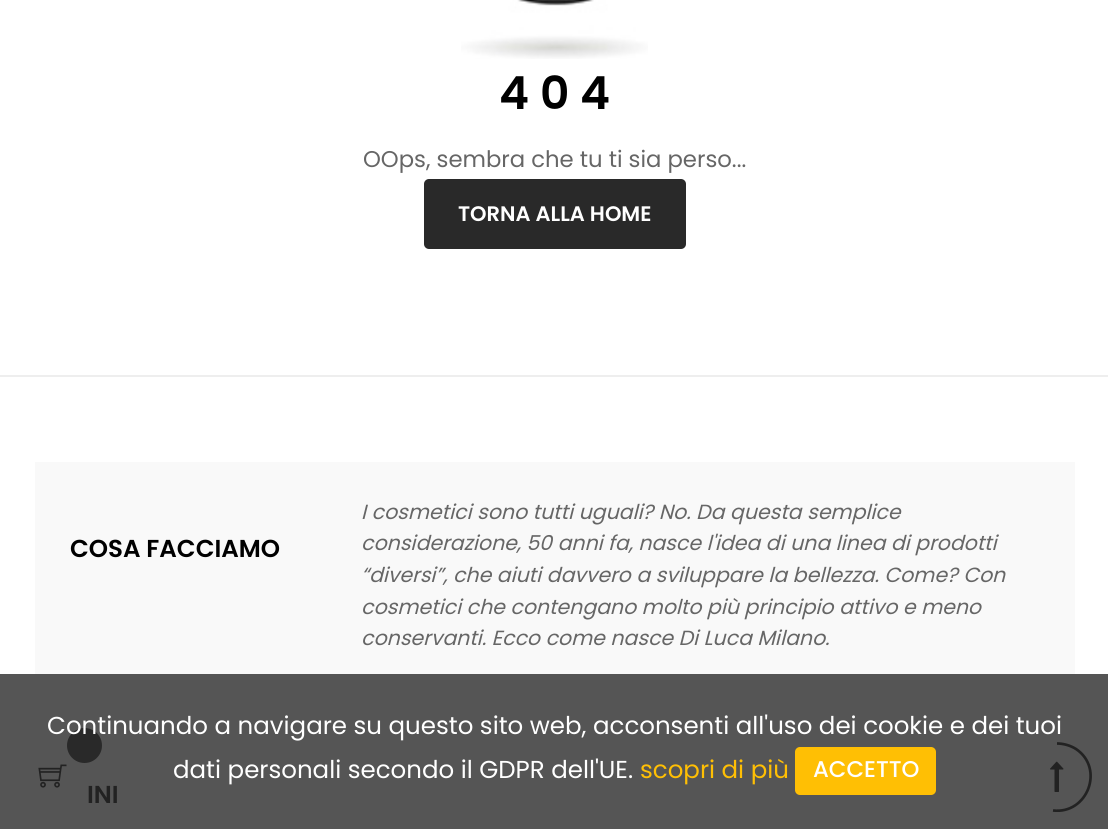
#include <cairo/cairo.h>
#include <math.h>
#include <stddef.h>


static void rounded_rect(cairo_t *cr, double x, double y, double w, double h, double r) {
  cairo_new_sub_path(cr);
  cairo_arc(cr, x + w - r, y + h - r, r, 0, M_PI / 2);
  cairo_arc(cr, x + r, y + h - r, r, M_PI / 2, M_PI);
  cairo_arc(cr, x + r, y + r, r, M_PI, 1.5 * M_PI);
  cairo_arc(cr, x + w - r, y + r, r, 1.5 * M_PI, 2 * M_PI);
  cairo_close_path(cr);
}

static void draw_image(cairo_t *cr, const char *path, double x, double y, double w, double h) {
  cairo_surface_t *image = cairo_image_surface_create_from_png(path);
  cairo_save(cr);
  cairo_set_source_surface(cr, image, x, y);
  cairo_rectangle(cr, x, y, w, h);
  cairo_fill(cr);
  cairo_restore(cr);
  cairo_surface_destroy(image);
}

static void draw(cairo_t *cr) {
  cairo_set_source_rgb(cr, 1, 1, 1);
  cairo_paint(cr);
  cairo_set_source_rgb(cr, 85 / 255.0, 85 / 255.0, 85 / 255.0);
  cairo_rectangle(cr, 0, 674, 1108, 155);
  cairo_fill(cr);
  draw_image(cr, "images/1.png", 461, 0, 187, 59);
  cairo_set_source_rgb(cr, 41 / 255.0, 41 / 255.0, 41 / 255.0);
  rounded_rect(cr, 424, 179, 262, 70, 5);
  cairo_fill(cr);
  cairo_set_source_rgb(cr, 238 / 255.0, 238 / 255.0, 238 / 255.0);
  cairo_rectangle(cr, 0, 375, 1108, 2);
  cairo_fill(cr);
  cairo_set_source_rgb(cr, 249 / 255.0, 249 / 255.0, 249 / 255.0);
  cairo_rectangle(cr, 35, 462, 1040, 212);
  cairo_fill(cr);
  cairo_set_source_rgb(cr, 1, 191 / 255.0, 4 / 255.0);
  rounded_rect(cr, 795, 747, 141, 48, 5);
  cairo_fill(cr);
  cairo_save(cr);
  cairo_rectangle(cr, 1022, 742, 70, 70);
  cairo_clip(cr);
  cairo_new_path(cr);
  cairo_move_to(cr, 1057, 743.5);
  cairo_curve_to(cr, 1063.5, 743.5, 1070.5, 745.5, 1076, 749);
  cairo_curve_to(cr, 1105, 768.5, 1087.5, 814.5, 1053, 810.5);
  cairo_set_source_rgb(cr, 34 / 255.0, 34 / 255.0, 34 / 255.0);
  cairo_set_line_width(cr, 2.7);
  cairo_stroke(cr);
  cairo_restore(cr);
  draw_image(cr, "images/2.png", 1050, 761, 14, 31);
  cairo_set_source_rgb(cr, 41 / 255.0, 41 / 255.0, 41 / 255.0);
  cairo_arc(cr, 84.5, 745.5, 17.5, 0, 2 * M_PI);
  cairo_fill(cr);
  draw_image(cr, "images/3.png", 38, 764, 29, 24);
  cairo_select_font_face(cr, "Poppins SemiBold", CAIRO_FONT_SLANT_NORMAL, CAIRO_FONT_WEIGHT_NORMAL);
  cairo_set_font_size(cr, 45.5);
  cairo_set_source_rgb(cr, 0, 0, 0);
  cairo_move_to(cr, 499, 109);
  cairo_show_text(cr, "4 0 4");
  cairo_select_font_face(cr, "Poppins", CAIRO_FONT_SLANT_NORMAL, CAIRO_FONT_WEIGHT_NORMAL);
  cairo_set_font_size(cr, 22.75);
  cairo_set_source_rgb(cr, 102 / 255.0, 102 / 255.0, 102 / 255.0);
  cairo_move_to(cr, 363, 167);
  cairo_show_text(cr, "OOps, sembra che tu ti sia perso...");
  cairo_select_font_face(cr, "Poppins SemiBold", CAIRO_FONT_SLANT_NORMAL, CAIRO_FONT_WEIGHT_NORMAL);
  cairo_set_font_size(cr, 21);
  cairo_set_source_rgb(cr, 1, 1, 1);
  cairo_move_to(cr, 458, 221);
  cairo_show_text(cr, "TORNA ALLA HOME");
  cairo_set_font_size(cr, 24.5);
  cairo_set_source_rgb(cr, 0, 0, 0);
  cairo_move_to(cr, 70, 557);
  cairo_show_text(cr, "COSA FACCIAMO");
  cairo_select_font_face(cr, "Poppins", CAIRO_FONT_SLANT_ITALIC, CAIRO_FONT_WEIGHT_NORMAL);
  cairo_set_font_size(cr, 20.5);
  cairo_set_source_rgb(cr, 102 / 255.0, 102 / 255.0, 102 / 255.0);
  cairo_move_to(cr, 361, 519);
  cairo_show_text(cr, "I cosmetici sono tutti uguali? No. Da questa semplice");
  cairo_move_to(cr, 361, 550);
  cairo_show_text(cr, "considerazione, 50 anni fa, nasce l'idea di una linea di prodotti");
  cairo_move_to(cr, 361, 582);
  cairo_show_text(cr, "“diversi”, che aiuti davvero a sviluppare la bellezza. Come? Con");
  cairo_move_to(cr, 361, 614);
  cairo_show_text(cr, "cosmetici che contengano molto più principio attivo e meno");
  cairo_move_to(cr, 361, 645);
  cairo_show_text(cr, "conservanti. Ecco come nasce Di Luca Milano.");
  cairo_select_font_face(cr, "Poppins SemiBold", CAIRO_FONT_SLANT_NORMAL, CAIRO_FONT_WEIGHT_NORMAL);
  cairo_set_font_size(cr, 24.5);
  cairo_set_source_rgb(cr, 34 / 255.0, 34 / 255.0, 34 / 255.0);
  cairo_move_to(cr, 87, 803);
  cairo_show_text(cr, "INI");
  cairo_select_font_face(cr, "Poppins", CAIRO_FONT_SLANT_NORMAL, CAIRO_FONT_WEIGHT_NORMAL);
  cairo_set_source_rgb(cr, 1, 1, 1);
  cairo_move_to(cr, 47, 734);
  cairo_show_text(cr, "Continuando a navigare su questo sito web, acconsenti all'uso dei cookie e dei tuoi");
  cairo_move_to(cr, 173, 778);
  cairo_show_text(cr, "dati personali secondo il GDPR dell'UE.");
  cairo_set_source_rgb(cr, 1, 191 / 255.0, 4 / 255.0);
  cairo_move_to(cr, 640, 778);
  cairo_show_text(cr, "scopri di più");
  cairo_select_font_face(cr, "Poppins Medium", CAIRO_FONT_SLANT_NORMAL, CAIRO_FONT_WEIGHT_NORMAL);
  cairo_set_font_size(cr, 22.75);
  cairo_set_source_rgb(cr, 1, 1, 1);
  cairo_move_to(cr, 813, 777);
  cairo_show_text(cr, "ACCETTO");
}

int main(void) {
  cairo_surface_t *surface = cairo_image_surface_create(CAIRO_FORMAT_RGB24, 1108, 829);
  cairo_t *cr = cairo_create(surface);
  cairo_font_options_t *options = cairo_font_options_create();
  cairo_font_options_set_hint_metrics(options, CAIRO_HINT_METRICS_OFF);
  cairo_font_options_set_hint_style(options, CAIRO_HINT_STYLE_NONE);
  cairo_set_font_options(cr, options);
  cairo_set_miter_limit(cr, 4);
  draw(cr);
  cairo_surface_write_to_png(surface, "out.png");
  cairo_font_options_destroy(options);
  cairo_destroy(cr);
  cairo_surface_destroy(surface);
  return 0;
}
